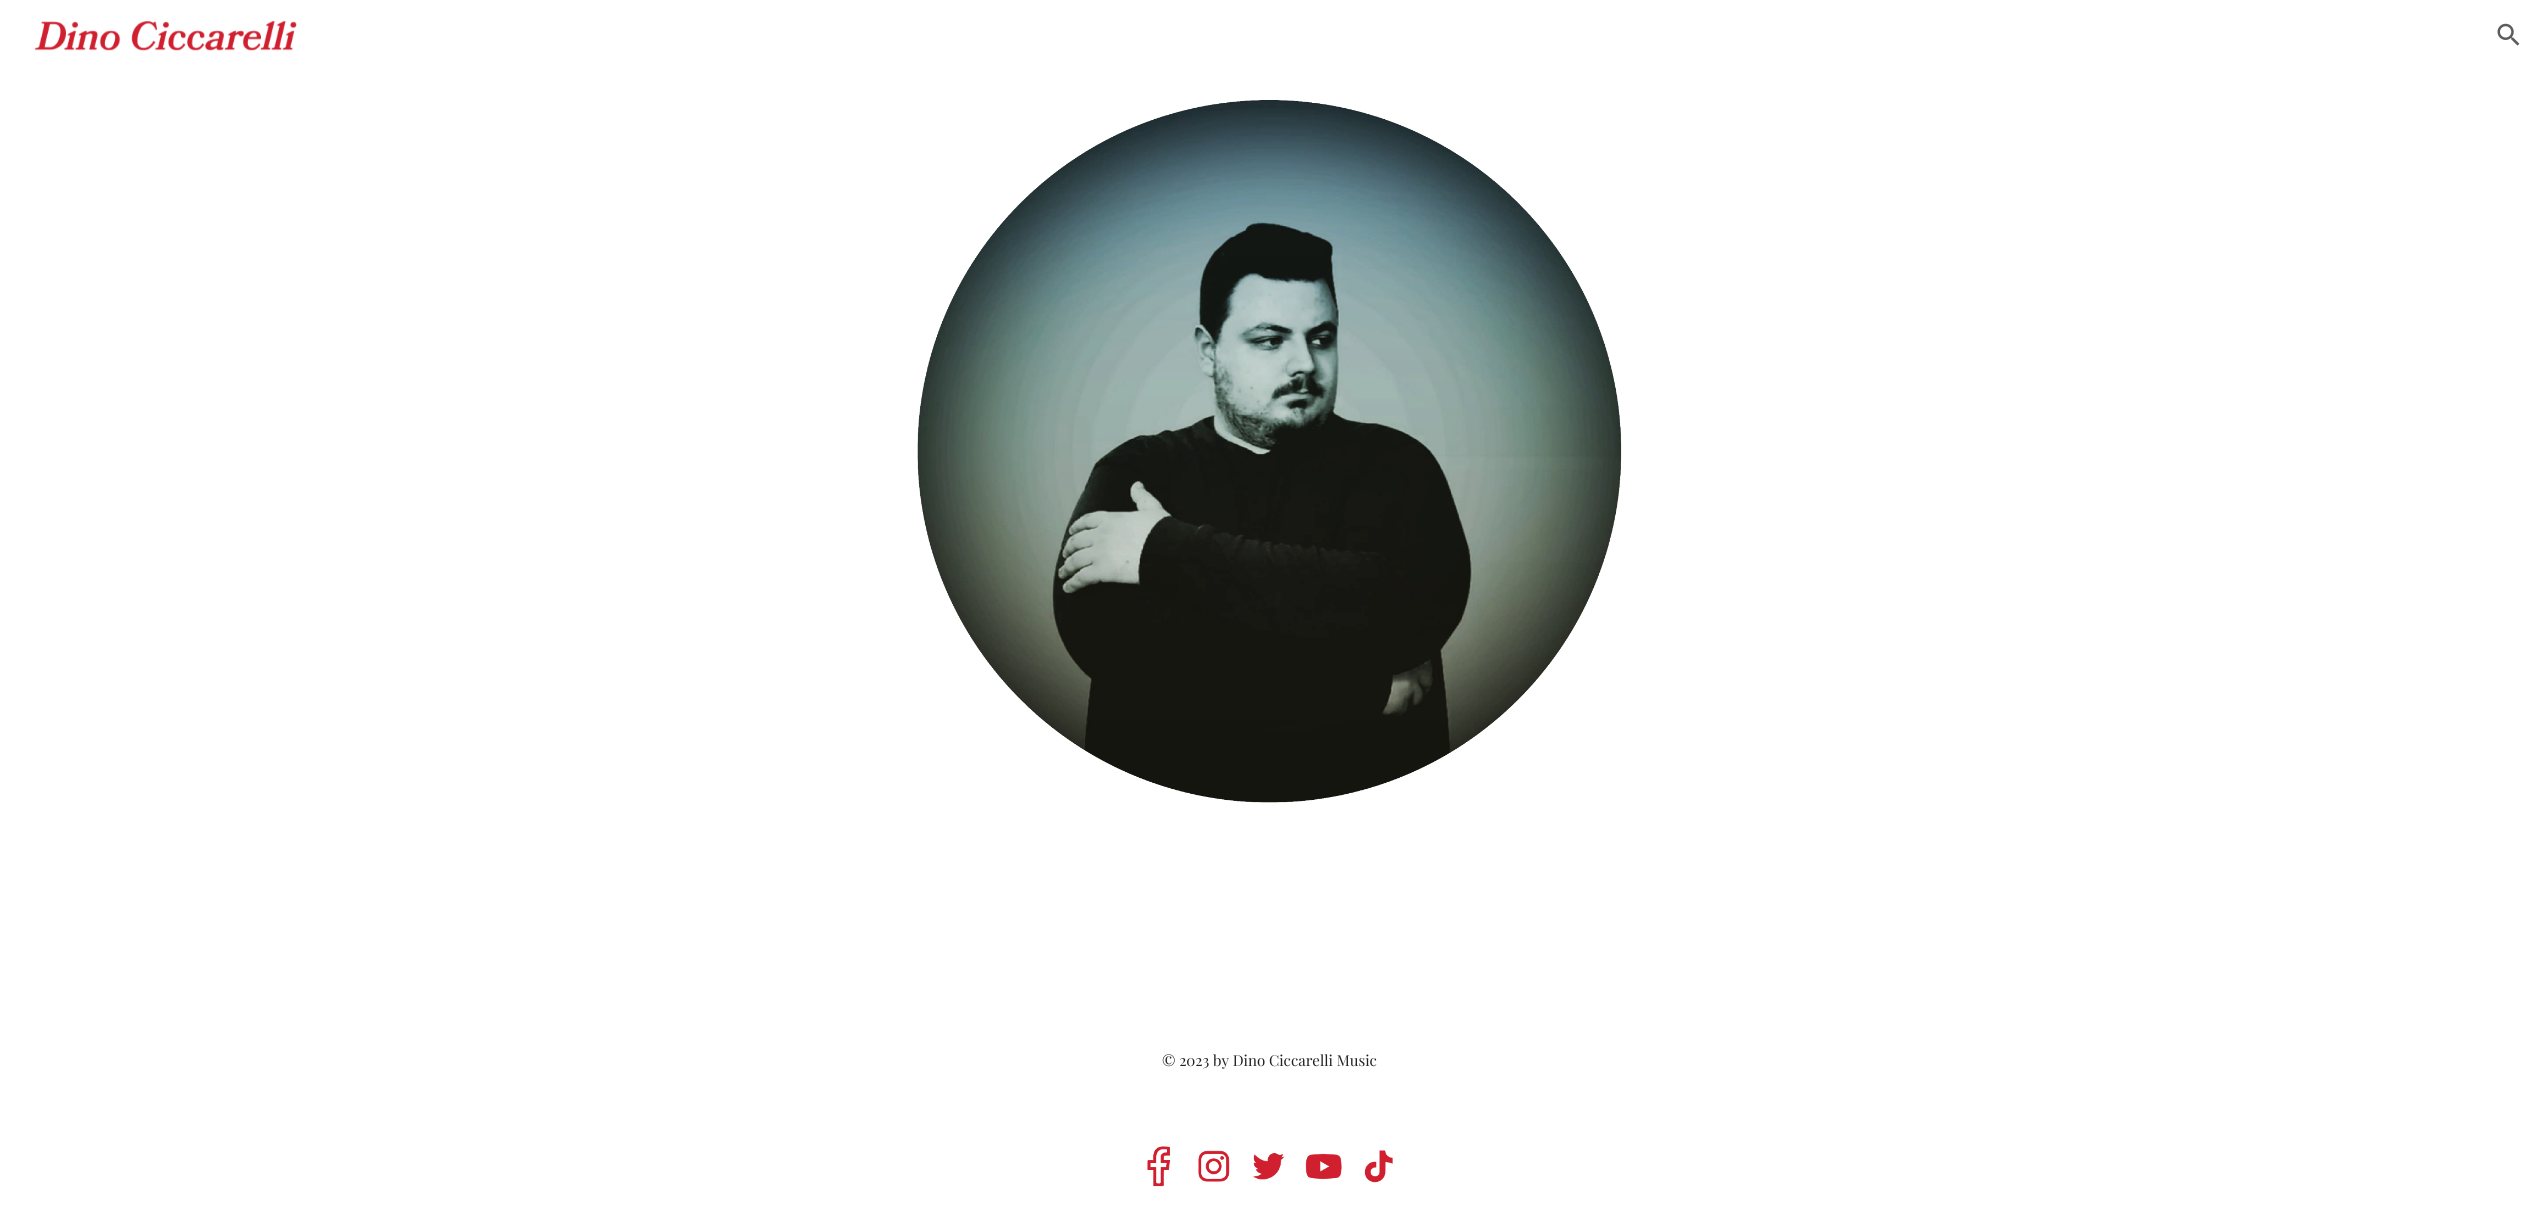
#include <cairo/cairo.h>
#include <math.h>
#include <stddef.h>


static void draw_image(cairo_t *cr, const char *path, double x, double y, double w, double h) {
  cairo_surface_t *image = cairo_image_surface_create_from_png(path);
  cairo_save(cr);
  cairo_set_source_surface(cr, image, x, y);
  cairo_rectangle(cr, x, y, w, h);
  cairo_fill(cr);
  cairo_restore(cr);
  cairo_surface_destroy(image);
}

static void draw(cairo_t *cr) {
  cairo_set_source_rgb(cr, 1, 1, 1);
  cairo_paint(cr);
  draw_image(cr, "images/1.png", 34, 21, 263, 30);
  draw_image(cr, "images/2.png", 2497, 23, 23, 23);
  draw_image(cr, "images/3.png", 917, 100, 705, 703);
  draw_image(cr, "images/4.png", 1147, 1146, 24, 41);
  draw_image(cr, "images/5.png", 1198, 1150, 32, 32);
  draw_image(cr, "images/6.png", 1253, 1153, 32, 27);
  draw_image(cr, "images/7.png", 1305, 1153, 37, 26);
  draw_image(cr, "images/8.png", 1364, 1150, 29, 33);
  cairo_select_font_face(cr, "Playfair Display", CAIRO_FONT_SLANT_NORMAL, CAIRO_FONT_WEIGHT_NORMAL);
  cairo_set_font_size(cr, 15);
  cairo_set_source_rgb(cr, 33 / 255.0, 33 / 255.0, 33 / 255.0);
  cairo_move_to(cr, 1162, 1066);
  cairo_show_text(cr, "© 2023 by Dino Ciccarelli Music");
}

int main(void) {
  cairo_surface_t *surface = cairo_image_surface_create(CAIRO_FORMAT_RGB24, 2538, 1223);
  cairo_t *cr = cairo_create(surface);
  cairo_font_options_t *options = cairo_font_options_create();
  cairo_font_options_set_hint_metrics(options, CAIRO_HINT_METRICS_OFF);
  cairo_font_options_set_hint_style(options, CAIRO_HINT_STYLE_NONE);
  cairo_set_font_options(cr, options);
  cairo_set_miter_limit(cr, 4);
  draw(cr);
  cairo_surface_write_to_png(surface, "out.png");
  cairo_font_options_destroy(options);
  cairo_destroy(cr);
  cairo_surface_destroy(surface);
  return 0;
}
